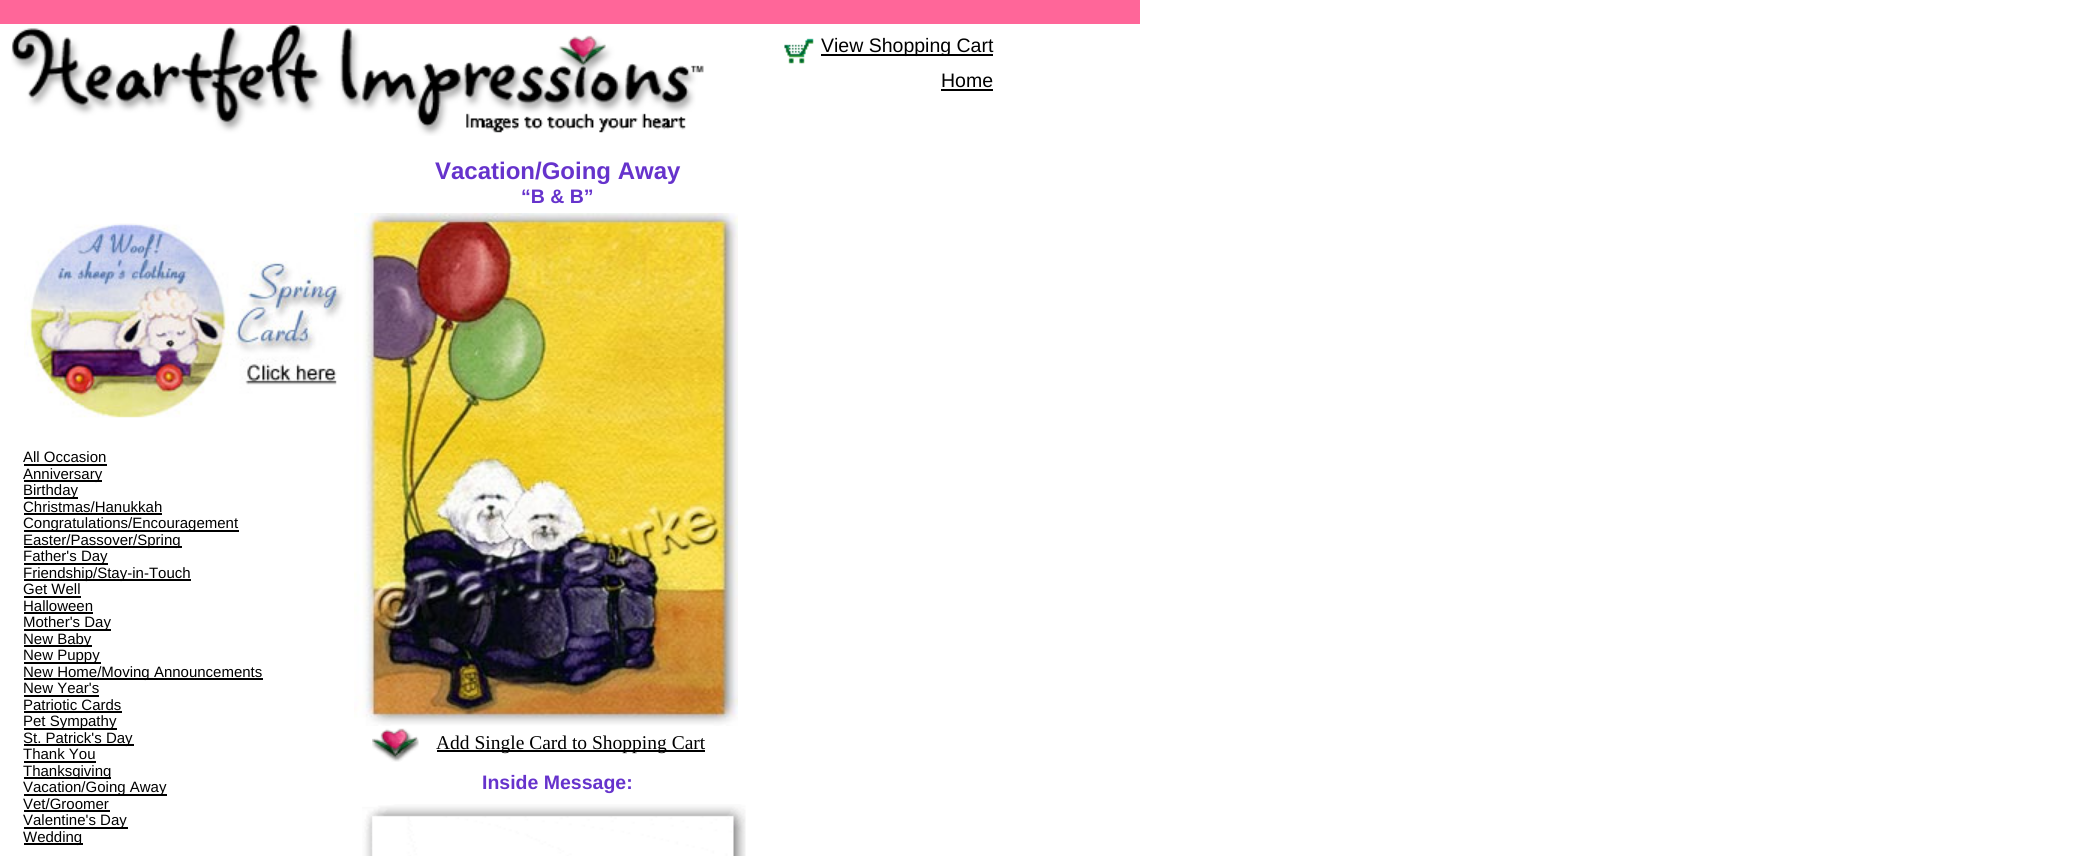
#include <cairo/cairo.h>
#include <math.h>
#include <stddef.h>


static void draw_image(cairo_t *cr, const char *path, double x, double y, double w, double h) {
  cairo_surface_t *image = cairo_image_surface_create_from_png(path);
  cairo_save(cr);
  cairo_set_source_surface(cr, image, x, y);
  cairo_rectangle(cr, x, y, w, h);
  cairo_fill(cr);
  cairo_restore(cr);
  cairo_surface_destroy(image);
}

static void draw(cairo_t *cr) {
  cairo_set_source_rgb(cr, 1, 1, 1);
  cairo_paint(cr);
  cairo_set_source_rgb(cr, 1, 102 / 255.0, 153 / 255.0);
  cairo_rectangle(cr, 0, 0, 1140, 24);
  cairo_fill(cr);
  draw_image(cr, "images/1.png", 11, 25, 693, 111);
  draw_image(cr, "images/2.png", 784, 38, 30, 26);
  cairo_set_source_rgb(cr, 0, 0, 0);
  cairo_rectangle(cr, 821, 54, 172, 2);
  cairo_fill(cr);
  cairo_rectangle(cr, 941, 89, 52, 2);
  cairo_fill(cr);
  draw_image(cr, "images/3.png", 24, 223, 322, 195);
  cairo_rectangle(cr, 24, 464, 83, 2);
  cairo_fill(cr);
  cairo_rectangle(cr, 24, 480, 78, 2);
  cairo_fill(cr);
  cairo_rectangle(cr, 24, 497, 54, 2);
  cairo_fill(cr);
  cairo_rectangle(cr, 24, 513, 138, 2);
  cairo_fill(cr);
  cairo_rectangle(cr, 24, 530, 215, 2);
  cairo_fill(cr);
  cairo_rectangle(cr, 24, 546, 158, 2);
  cairo_fill(cr);
  cairo_rectangle(cr, 24, 563, 84, 2);
  cairo_fill(cr);
  cairo_rectangle(cr, 24, 579, 167, 2);
  cairo_fill(cr);
  cairo_rectangle(cr, 24, 596, 57, 2);
  cairo_fill(cr);
  cairo_rectangle(cr, 24, 612, 69, 2);
  cairo_fill(cr);
  cairo_rectangle(cr, 24, 629, 87, 2);
  cairo_fill(cr);
  cairo_rectangle(cr, 24, 645, 68, 2);
  cairo_fill(cr);
  cairo_rectangle(cr, 24, 662, 77, 2);
  cairo_fill(cr);
  cairo_rectangle(cr, 24, 678, 239, 2);
  cairo_fill(cr);
  cairo_rectangle(cr, 24, 695, 75, 2);
  cairo_fill(cr);
  cairo_rectangle(cr, 24, 711, 98, 2);
  cairo_fill(cr);
  cairo_rectangle(cr, 24, 728, 93, 2);
  cairo_fill(cr);
  cairo_rectangle(cr, 24, 744, 110, 2);
  cairo_fill(cr);
  cairo_rectangle(cr, 24, 761, 72, 2);
  cairo_fill(cr);
  cairo_rectangle(cr, 24, 777, 87, 2);
  cairo_fill(cr);
  cairo_rectangle(cr, 24, 794, 143, 2);
  cairo_fill(cr);
  cairo_rectangle(cr, 24, 810, 86, 2);
  cairo_fill(cr);
  cairo_rectangle(cr, 24, 827, 104, 2);
  cairo_fill(cr);
  cairo_rectangle(cr, 24, 843, 59, 2);
  cairo_fill(cr);
  draw_image(cr, "images/4.png", 354, 213, 384, 513);
  draw_image(cr, "images/5.png", 372, 728, 47, 34);
  cairo_rectangle(cr, 437, 750, 268, 2);
  cairo_fill(cr);
  draw_image(cr, "images/6.png", 362, 804, 384, 52);
  cairo_select_font_face(cr, "Liberation Sans", CAIRO_FONT_SLANT_NORMAL, CAIRO_FONT_WEIGHT_NORMAL);
  cairo_set_font_size(cr, 19.5);
  cairo_move_to(cr, 821, 52);
  cairo_show_text(cr, "View Shopping Cart");
  cairo_move_to(cr, 941, 87);
  cairo_show_text(cr, "Home");
  cairo_select_font_face(cr, "Liberation Sans", CAIRO_FONT_SLANT_NORMAL, CAIRO_FONT_WEIGHT_BOLD);
  cairo_set_font_size(cr, 24);
  cairo_set_source_rgb(cr, 102 / 255.0, 51 / 255.0, 204 / 255.0);
  cairo_move_to(cr, 435, 179);
  cairo_show_text(cr, "Vacation/Going Away");
  cairo_set_font_size(cr, 19.5);
  cairo_move_to(cr, 521, 203);
  cairo_show_text(cr, "“B & B”");
  cairo_select_font_face(cr, "Liberation Sans", CAIRO_FONT_SLANT_NORMAL, CAIRO_FONT_WEIGHT_NORMAL);
  cairo_set_font_size(cr, 15);
  cairo_set_source_rgb(cr, 0, 0, 0);
  cairo_move_to(cr, 23, 462);
  cairo_show_text(cr, "All Occasion");
  cairo_move_to(cr, 23, 479);
  cairo_show_text(cr, "Anniversary");
  cairo_move_to(cr, 23, 495);
  cairo_show_text(cr, "Birthday");
  cairo_move_to(cr, 23, 512);
  cairo_show_text(cr, "Christmas/Hanukkah");
  cairo_move_to(cr, 23, 528);
  cairo_show_text(cr, "Congratulations/Encouragement");
  cairo_move_to(cr, 23, 545);
  cairo_show_text(cr, "Easter/Passover/Spring");
  cairo_move_to(cr, 23, 561);
  cairo_show_text(cr, "Father's Day");
  cairo_move_to(cr, 23, 578);
  cairo_show_text(cr, "Friendship/Stay-in-Touch");
  cairo_move_to(cr, 23, 594);
  cairo_show_text(cr, "Get Well");
  cairo_move_to(cr, 23, 611);
  cairo_show_text(cr, "Halloween");
  cairo_move_to(cr, 23, 627);
  cairo_show_text(cr, "Mother's Day");
  cairo_move_to(cr, 23, 644);
  cairo_show_text(cr, "New Baby");
  cairo_move_to(cr, 23, 660);
  cairo_show_text(cr, "New Puppy");
  cairo_move_to(cr, 23, 677);
  cairo_show_text(cr, "New Home/Moving Announcements");
  cairo_move_to(cr, 23, 693);
  cairo_show_text(cr, "New Year's");
  cairo_move_to(cr, 23, 710);
  cairo_show_text(cr, "Patriotic Cards");
  cairo_move_to(cr, 23, 726);
  cairo_show_text(cr, "Pet Sympathy");
  cairo_move_to(cr, 23, 743);
  cairo_show_text(cr, "St. Patrick's Day");
  cairo_move_to(cr, 23, 759);
  cairo_show_text(cr, "Thank You");
  cairo_move_to(cr, 23, 776);
  cairo_show_text(cr, "Thanksgiving");
  cairo_move_to(cr, 23, 792);
  cairo_show_text(cr, "Vacation/Going Away");
  cairo_move_to(cr, 23, 809);
  cairo_show_text(cr, "Vet/Groomer");
  cairo_move_to(cr, 23, 825);
  cairo_show_text(cr, "Valentine's Day");
  cairo_move_to(cr, 23, 842);
  cairo_show_text(cr, "Wedding");
  cairo_select_font_face(cr, "Liberation Serif", CAIRO_FONT_SLANT_NORMAL, CAIRO_FONT_WEIGHT_NORMAL);
  cairo_set_font_size(cr, 19.5);
  cairo_move_to(cr, 436, 749);
  cairo_show_text(cr, "Add Single Card to Shopping Cart");
  cairo_select_font_face(cr, "Liberation Sans", CAIRO_FONT_SLANT_NORMAL, CAIRO_FONT_WEIGHT_BOLD);
  cairo_set_source_rgb(cr, 102 / 255.0, 51 / 255.0, 204 / 255.0);
  cairo_move_to(cr, 482, 789);
  cairo_show_text(cr, "Inside Message:");
}

int main(void) {
  cairo_surface_t *surface = cairo_image_surface_create(CAIRO_FORMAT_RGB24, 2090, 856);
  cairo_t *cr = cairo_create(surface);
  cairo_font_options_t *options = cairo_font_options_create();
  cairo_font_options_set_hint_metrics(options, CAIRO_HINT_METRICS_OFF);
  cairo_font_options_set_hint_style(options, CAIRO_HINT_STYLE_NONE);
  cairo_set_font_options(cr, options);
  cairo_set_miter_limit(cr, 4);
  draw(cr);
  cairo_surface_write_to_png(surface, "out.png");
  cairo_font_options_destroy(options);
  cairo_destroy(cr);
  cairo_surface_destroy(surface);
  return 0;
}
